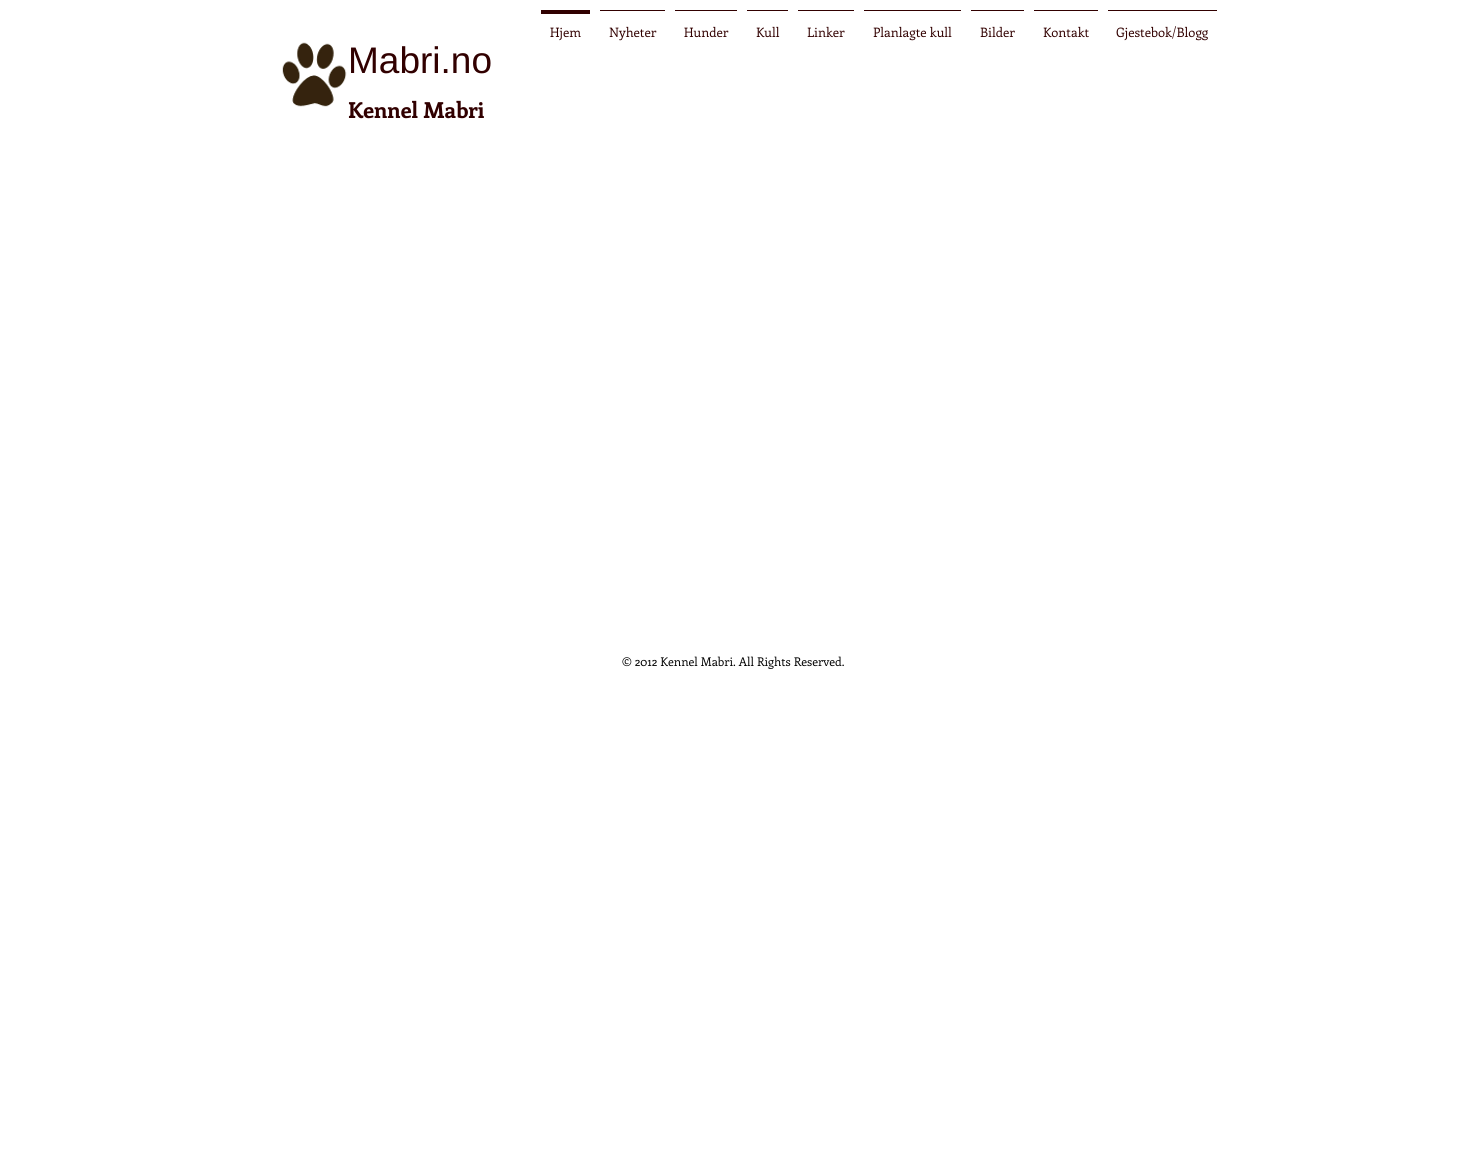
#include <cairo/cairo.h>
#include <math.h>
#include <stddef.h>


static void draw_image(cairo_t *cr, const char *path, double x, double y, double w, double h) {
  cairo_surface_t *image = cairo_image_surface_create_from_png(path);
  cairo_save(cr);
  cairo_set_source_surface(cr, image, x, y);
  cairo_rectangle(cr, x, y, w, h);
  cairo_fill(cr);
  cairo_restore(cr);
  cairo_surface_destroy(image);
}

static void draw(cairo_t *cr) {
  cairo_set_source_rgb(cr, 1, 1, 1);
  cairo_paint(cr);
  cairo_set_source_rgb(cr, 49 / 255.0, 0, 0);
  cairo_rectangle(cr, 541, 10, 49, 4);
  cairo_fill(cr);
  cairo_rectangle(cr, 600, 10, 65, 1);
  cairo_fill(cr);
  cairo_rectangle(cr, 675, 10, 62, 1);
  cairo_fill(cr);
  cairo_rectangle(cr, 747, 10, 41, 1);
  cairo_fill(cr);
  cairo_rectangle(cr, 798, 10, 56, 1);
  cairo_fill(cr);
  cairo_rectangle(cr, 864, 10, 97, 1);
  cairo_fill(cr);
  cairo_rectangle(cr, 971, 10, 53, 1);
  cairo_fill(cr);
  cairo_rectangle(cr, 1034, 10, 64, 1);
  cairo_fill(cr);
  cairo_rectangle(cr, 1108, 10, 109, 1);
  cairo_fill(cr);
  draw_image(cr, "images/1.png", 282, 42, 65, 65);
  cairo_select_font_face(cr, "Enriqueta", CAIRO_FONT_SLANT_NORMAL, CAIRO_FONT_WEIGHT_NORMAL);
  cairo_set_font_size(cr, 13);
  cairo_move_to(cr, 550, 37);
  cairo_show_text(cr, "Hjem");
  cairo_move_to(cr, 609, 37);
  cairo_show_text(cr, "Nyheter");
  cairo_move_to(cr, 684, 37);
  cairo_show_text(cr, "Hunder");
  cairo_move_to(cr, 756, 37);
  cairo_show_text(cr, "Kull");
  cairo_move_to(cr, 807, 37);
  cairo_show_text(cr, "Linker");
  cairo_move_to(cr, 873, 37);
  cairo_show_text(cr, "Planlagte kull");
  cairo_move_to(cr, 980, 37);
  cairo_show_text(cr, "Bilder");
  cairo_move_to(cr, 1043, 37);
  cairo_show_text(cr, "Kontakt");
  cairo_move_to(cr, 1116, 37);
  cairo_show_text(cr, "Gjestebok/Blogg");
  cairo_select_font_face(cr, "Liberation Sans", CAIRO_FONT_SLANT_NORMAL, CAIRO_FONT_WEIGHT_NORMAL);
  cairo_set_font_size(cr, 37);
  cairo_move_to(cr, 348, 73);
  cairo_show_text(cr, "Mabri.no");
  cairo_select_font_face(cr, "Enriqueta", CAIRO_FONT_SLANT_NORMAL, CAIRO_FONT_WEIGHT_BOLD);
  cairo_set_font_size(cr, 22);
  cairo_move_to(cr, 348, 118);
  cairo_show_text(cr, "Kennel Mabri");
  cairo_select_font_face(cr, "Enriqueta", CAIRO_FONT_SLANT_NORMAL, CAIRO_FONT_WEIGHT_NORMAL);
  cairo_set_font_size(cr, 12);
  cairo_set_source_rgb(cr, 0, 0, 0);
  cairo_move_to(cr, 622, 666);
  cairo_show_text(cr, "© 2012 Kennel Mabri. All Rights Reserved.");
}

int main(void) {
  cairo_surface_t *surface = cairo_image_surface_create(CAIRO_FORMAT_RGB24, 1476, 1154);
  cairo_t *cr = cairo_create(surface);
  cairo_font_options_t *options = cairo_font_options_create();
  cairo_font_options_set_hint_metrics(options, CAIRO_HINT_METRICS_OFF);
  cairo_font_options_set_hint_style(options, CAIRO_HINT_STYLE_NONE);
  cairo_set_font_options(cr, options);
  cairo_set_miter_limit(cr, 4);
  draw(cr);
  cairo_surface_write_to_png(surface, "out.png");
  cairo_font_options_destroy(options);
  cairo_destroy(cr);
  cairo_surface_destroy(surface);
  return 0;
}
